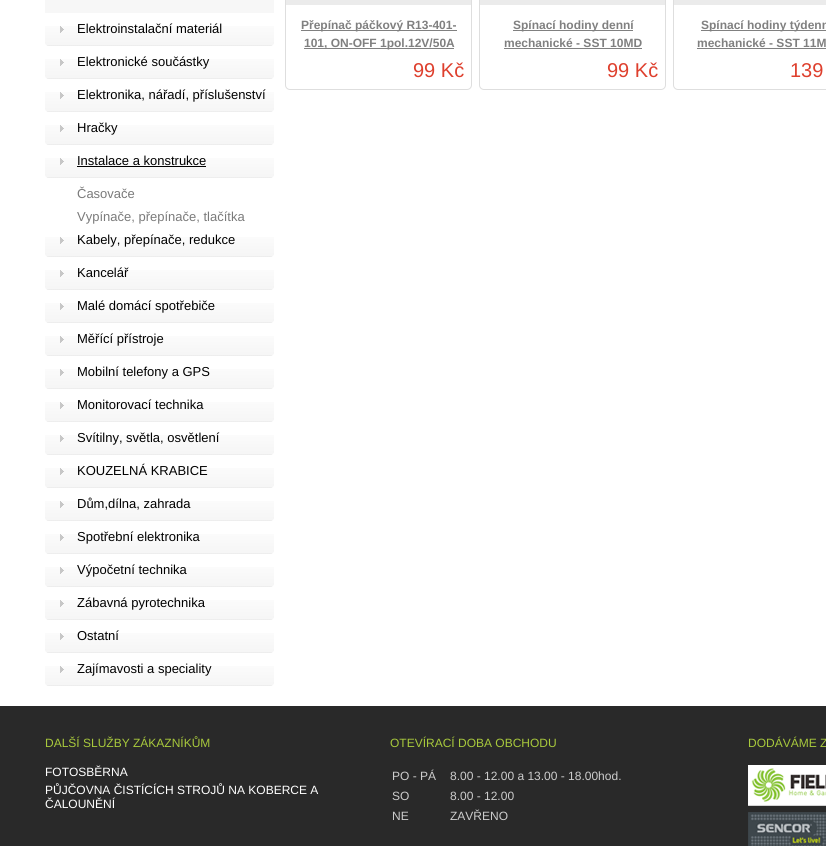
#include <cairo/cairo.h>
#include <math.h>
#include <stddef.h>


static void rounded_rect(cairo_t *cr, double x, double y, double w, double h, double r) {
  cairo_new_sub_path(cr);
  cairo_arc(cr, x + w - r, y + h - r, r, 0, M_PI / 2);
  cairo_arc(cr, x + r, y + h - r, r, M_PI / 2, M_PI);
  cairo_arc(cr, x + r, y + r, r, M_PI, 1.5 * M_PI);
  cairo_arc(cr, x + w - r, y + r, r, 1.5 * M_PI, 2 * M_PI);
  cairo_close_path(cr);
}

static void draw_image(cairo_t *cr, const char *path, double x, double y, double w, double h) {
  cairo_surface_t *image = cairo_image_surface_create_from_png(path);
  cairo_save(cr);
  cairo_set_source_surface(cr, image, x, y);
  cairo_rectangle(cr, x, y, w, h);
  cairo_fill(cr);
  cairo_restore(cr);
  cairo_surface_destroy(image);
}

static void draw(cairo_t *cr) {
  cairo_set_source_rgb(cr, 1, 1, 1);
  cairo_paint(cr);
  cairo_set_source_rgb(cr, 247 / 255.0, 247 / 255.0, 247 / 255.0);
  cairo_rectangle(cr, 45, 0, 229, 13);
  cairo_fill(cr);
  draw_image(cr, "images/1.png", 45, 26, 229, 20);
  draw_image(cr, "images/1.png", 45, 59, 229, 20);
  draw_image(cr, "images/1.png", 45, 92, 229, 20);
  draw_image(cr, "images/1.png", 45, 125, 229, 20);
  draw_image(cr, "images/1.png", 45, 158, 229, 20);
  cairo_set_source_rgb(cr, 0, 0, 0);
  cairo_rectangle(cr, 77, 166, 129, 1);
  cairo_fill(cr);
  draw_image(cr, "images/1.png", 45, 237, 229, 20);
  draw_image(cr, "images/1.png", 45, 270, 229, 20);
  draw_image(cr, "images/1.png", 45, 303, 229, 20);
  draw_image(cr, "images/1.png", 45, 336, 229, 20);
  draw_image(cr, "images/1.png", 45, 369, 229, 20);
  draw_image(cr, "images/1.png", 45, 402, 229, 20);
  draw_image(cr, "images/1.png", 45, 435, 229, 20);
  draw_image(cr, "images/1.png", 45, 468, 229, 20);
  draw_image(cr, "images/1.png", 45, 501, 229, 20);
  draw_image(cr, "images/1.png", 45, 534, 229, 20);
  draw_image(cr, "images/1.png", 45, 567, 229, 20);
  draw_image(cr, "images/1.png", 45, 600, 229, 20);
  draw_image(cr, "images/1.png", 45, 633, 229, 20);
  draw_image(cr, "images/1.png", 45, 666, 229, 20);
  rounded_rect(cr, 285.5, -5.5, 186, 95, 4.5);
  cairo_set_source_rgb(cr, 222 / 255.0, 222 / 255.0, 222 / 255.0);
  cairo_set_line_width(cr, 1);
  cairo_stroke(cr);
  cairo_set_source_rgb(cr, 235 / 255.0, 235 / 255.0, 235 / 255.0);
  cairo_rectangle(cr, 286, 0, 185, 5);
  cairo_fill(cr);
  cairo_set_source_rgb(cr, 128 / 255.0, 128 / 255.0, 128 / 255.0);
  cairo_rectangle(cr, 301, 30, 156, 1);
  cairo_fill(cr);
  cairo_rectangle(cr, 304, 48, 150, 1);
  cairo_fill(cr);
  rounded_rect(cr, 479.5, -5.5, 186, 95, 4.5);
  cairo_set_source_rgb(cr, 222 / 255.0, 222 / 255.0, 222 / 255.0);
  cairo_stroke(cr);
  cairo_set_source_rgb(cr, 235 / 255.0, 235 / 255.0, 235 / 255.0);
  cairo_rectangle(cr, 480, 0, 185, 5);
  cairo_fill(cr);
  cairo_set_source_rgb(cr, 128 / 255.0, 128 / 255.0, 128 / 255.0);
  cairo_rectangle(cr, 513, 30, 120, 1);
  cairo_fill(cr);
  cairo_rectangle(cr, 504, 48, 138, 1);
  cairo_fill(cr);
  rounded_rect(cr, 673.5, -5.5, 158, 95, 4.5);
  cairo_set_source_rgb(cr, 222 / 255.0, 222 / 255.0, 222 / 255.0);
  cairo_stroke(cr);
  cairo_set_source_rgb(cr, 235 / 255.0, 235 / 255.0, 235 / 255.0);
  cairo_rectangle(cr, 674, 0, 152, 5);
  cairo_fill(cr);
  cairo_set_source_rgb(cr, 128 / 255.0, 128 / 255.0, 128 / 255.0);
  cairo_rectangle(cr, 701, 30, 125, 1);
  cairo_fill(cr);
  cairo_rectangle(cr, 697, 48, 129, 1);
  cairo_fill(cr);
  cairo_set_source_rgb(cr, 41 / 255.0, 41 / 255.0, 41 / 255.0);
  cairo_rectangle(cr, 0, 706, 826, 140);
  cairo_fill(cr);
  draw_image(cr, "images/2.png", 748, 765, 78, 81);
  cairo_select_font_face(cr, "Liberation Sans", CAIRO_FONT_SLANT_NORMAL, CAIRO_FONT_WEIGHT_NORMAL);
  cairo_set_font_size(cr, 13);
  cairo_set_source_rgb(cr, 0, 0, 0);
  cairo_move_to(cr, 77, 33);
  cairo_show_text(cr, "Elektroinstalační materiál");
  cairo_move_to(cr, 77, 66);
  cairo_show_text(cr, "Elektronické součástky");
  cairo_move_to(cr, 77, 99);
  cairo_show_text(cr, "Elektronika, nářadí, příslušenství");
  cairo_move_to(cr, 77, 132);
  cairo_show_text(cr, "Hračky");
  cairo_move_to(cr, 77, 165);
  cairo_show_text(cr, "Instalace a konstrukce");
  cairo_set_source_rgb(cr, 122 / 255.0, 122 / 255.0, 122 / 255.0);
  cairo_move_to(cr, 77, 198);
  cairo_show_text(cr, "Časovače");
  cairo_move_to(cr, 77, 221);
  cairo_show_text(cr, "Vypínače, přepínače, tlačítka");
  cairo_set_source_rgb(cr, 0, 0, 0);
  cairo_move_to(cr, 77, 244);
  cairo_show_text(cr, "Kabely, přepínače, redukce");
  cairo_move_to(cr, 77, 277);
  cairo_show_text(cr, "Kancelář");
  cairo_move_to(cr, 77, 310);
  cairo_show_text(cr, "Malé domácí spotřebiče");
  cairo_move_to(cr, 77, 343);
  cairo_show_text(cr, "Měřící přístroje");
  cairo_move_to(cr, 77, 376);
  cairo_show_text(cr, "Mobilní telefony a GPS");
  cairo_move_to(cr, 77, 409);
  cairo_show_text(cr, "Monitorovací technika");
  cairo_move_to(cr, 77, 442);
  cairo_show_text(cr, "Svítilny, světla, osvětlení");
  cairo_move_to(cr, 77, 475);
  cairo_show_text(cr, "KOUZELNÁ KRABICE");
  cairo_move_to(cr, 77, 508);
  cairo_show_text(cr, "Dům,dílna, zahrada");
  cairo_move_to(cr, 77, 541);
  cairo_show_text(cr, "Spotřební elektronika");
  cairo_move_to(cr, 77, 574);
  cairo_show_text(cr, "Výpočetní technika");
  cairo_move_to(cr, 77, 607);
  cairo_show_text(cr, "Zábavná pyrotechnika");
  cairo_move_to(cr, 77, 640);
  cairo_show_text(cr, "Ostatní");
  cairo_move_to(cr, 77, 673);
  cairo_show_text(cr, "Zajímavosti a speciality");
  cairo_select_font_face(cr, "Liberation Sans", CAIRO_FONT_SLANT_NORMAL, CAIRO_FONT_WEIGHT_BOLD);
  cairo_set_font_size(cr, 12);
  cairo_set_source_rgb(cr, 128 / 255.0, 128 / 255.0, 128 / 255.0);
  cairo_move_to(cr, 301, 29);
  cairo_show_text(cr, "Přepínač páčkový R13-401-");
  cairo_move_to(cr, 304, 47);
  cairo_show_text(cr, "101, ON-OFF 1pol.12V/50A");
  cairo_select_font_face(cr, "Liberation Sans", CAIRO_FONT_SLANT_NORMAL, CAIRO_FONT_WEIGHT_NORMAL);
  cairo_set_font_size(cr, 20);
  cairo_set_source_rgb(cr, 222 / 255.0, 63 / 255.0, 45 / 255.0);
  cairo_move_to(cr, 413, 77);
  cairo_show_text(cr, "99 Kč");
  cairo_select_font_face(cr, "Liberation Sans", CAIRO_FONT_SLANT_NORMAL, CAIRO_FONT_WEIGHT_BOLD);
  cairo_set_font_size(cr, 12);
  cairo_set_source_rgb(cr, 128 / 255.0, 128 / 255.0, 128 / 255.0);
  cairo_move_to(cr, 513, 29);
  cairo_show_text(cr, "Spínací hodiny denní");
  cairo_move_to(cr, 504, 47);
  cairo_show_text(cr, "mechanické - SST 10MD");
  cairo_select_font_face(cr, "Liberation Sans", CAIRO_FONT_SLANT_NORMAL, CAIRO_FONT_WEIGHT_NORMAL);
  cairo_set_font_size(cr, 20);
  cairo_set_source_rgb(cr, 222 / 255.0, 63 / 255.0, 45 / 255.0);
  cairo_move_to(cr, 607, 77);
  cairo_show_text(cr, "99 Kč");
  cairo_select_font_face(cr, "Liberation Sans", CAIRO_FONT_SLANT_NORMAL, CAIRO_FONT_WEIGHT_BOLD);
  cairo_set_font_size(cr, 12);
  cairo_set_source_rgb(cr, 128 / 255.0, 128 / 255.0, 128 / 255.0);
  cairo_move_to(cr, 701, 29);
  cairo_show_text(cr, "Spínací hodiny týdenn");
  cairo_move_to(cr, 697, 47);
  cairo_show_text(cr, "mechanické - SST 11M");
  cairo_select_font_face(cr, "Liberation Sans", CAIRO_FONT_SLANT_NORMAL, CAIRO_FONT_WEIGHT_NORMAL);
  cairo_set_font_size(cr, 20);
  cairo_set_source_rgb(cr, 222 / 255.0, 63 / 255.0, 45 / 255.0);
  cairo_move_to(cr, 790, 77);
  cairo_show_text(cr, "139");
  cairo_set_font_size(cr, 12);
  cairo_set_source_rgb(cr, 168 / 255.0, 201 / 255.0, 60 / 255.0);
  cairo_move_to(cr, 45, 747);
  cairo_show_text(cr, "DALŠÍ SLUŽBY ZÁKAZNÍKŮM");
  cairo_set_source_rgb(cr, 1, 1, 1);
  cairo_move_to(cr, 45, 776);
  cairo_show_text(cr, "FOTOSBĚRNA");
  cairo_move_to(cr, 45, 794);
  cairo_show_text(cr, "PŮJČOVNA ČISTÍCÍCH STROJŮ NA KOBERCE A");
  cairo_move_to(cr, 45, 808);
  cairo_show_text(cr, "ČALOUNĚNÍ");
  cairo_set_source_rgb(cr, 168 / 255.0, 201 / 255.0, 60 / 255.0);
  cairo_move_to(cr, 390, 747);
  cairo_show_text(cr, "OTEVÍRACÍ DOBA OBCHODU");
  cairo_set_source_rgb(cr, 205 / 255.0, 205 / 255.0, 205 / 255.0);
  cairo_move_to(cr, 392, 780);
  cairo_show_text(cr, "PO - PÁ");
  cairo_move_to(cr, 450, 780);
  cairo_show_text(cr, "8.00 - 12.00 a 13.00 - 18.00hod.");
  cairo_move_to(cr, 392, 800);
  cairo_show_text(cr, "SO");
  cairo_move_to(cr, 450, 800);
  cairo_show_text(cr, "8.00 - 12.00");
  cairo_move_to(cr, 392, 820);
  cairo_show_text(cr, "NE");
  cairo_move_to(cr, 450, 820);
  cairo_show_text(cr, "ZAVŘENO");
  cairo_set_source_rgb(cr, 168 / 255.0, 201 / 255.0, 60 / 255.0);
  cairo_move_to(cr, 748, 747);
  cairo_show_text(cr, "DODÁVÁME Z");
}

int main(void) {
  cairo_surface_t *surface = cairo_image_surface_create(CAIRO_FORMAT_RGB24, 826, 846);
  cairo_t *cr = cairo_create(surface);
  cairo_font_options_t *options = cairo_font_options_create();
  cairo_font_options_set_hint_metrics(options, CAIRO_HINT_METRICS_OFF);
  cairo_font_options_set_hint_style(options, CAIRO_HINT_STYLE_NONE);
  cairo_set_font_options(cr, options);
  cairo_set_miter_limit(cr, 4);
  draw(cr);
  cairo_surface_write_to_png(surface, "out.png");
  cairo_font_options_destroy(options);
  cairo_destroy(cr);
  cairo_surface_destroy(surface);
  return 0;
}
